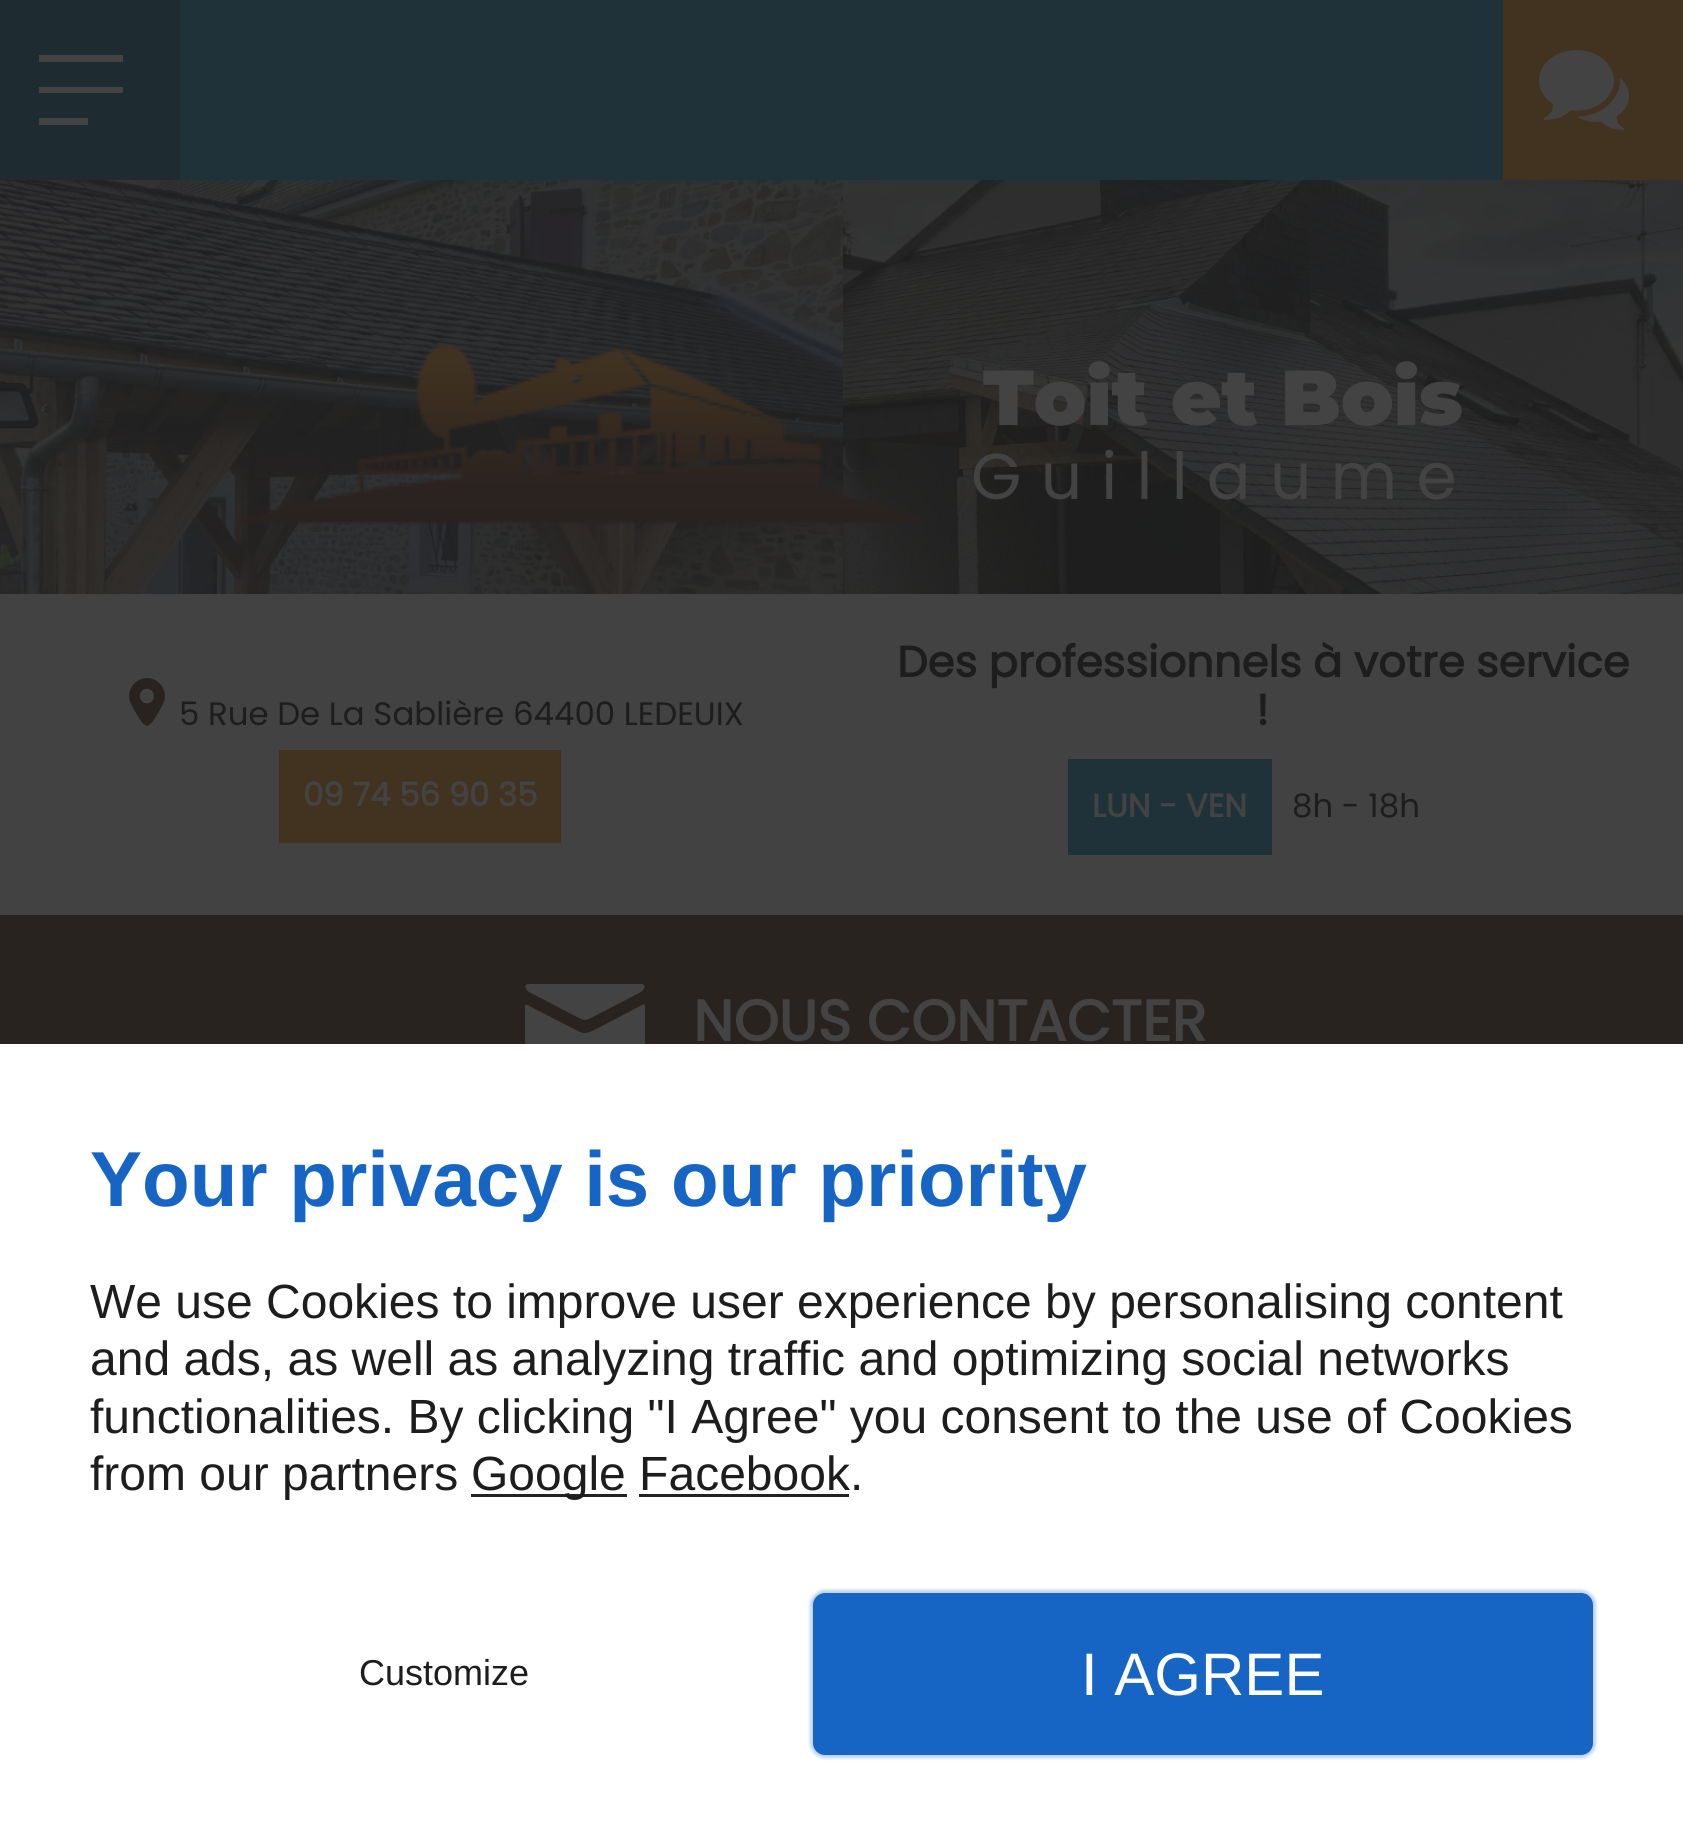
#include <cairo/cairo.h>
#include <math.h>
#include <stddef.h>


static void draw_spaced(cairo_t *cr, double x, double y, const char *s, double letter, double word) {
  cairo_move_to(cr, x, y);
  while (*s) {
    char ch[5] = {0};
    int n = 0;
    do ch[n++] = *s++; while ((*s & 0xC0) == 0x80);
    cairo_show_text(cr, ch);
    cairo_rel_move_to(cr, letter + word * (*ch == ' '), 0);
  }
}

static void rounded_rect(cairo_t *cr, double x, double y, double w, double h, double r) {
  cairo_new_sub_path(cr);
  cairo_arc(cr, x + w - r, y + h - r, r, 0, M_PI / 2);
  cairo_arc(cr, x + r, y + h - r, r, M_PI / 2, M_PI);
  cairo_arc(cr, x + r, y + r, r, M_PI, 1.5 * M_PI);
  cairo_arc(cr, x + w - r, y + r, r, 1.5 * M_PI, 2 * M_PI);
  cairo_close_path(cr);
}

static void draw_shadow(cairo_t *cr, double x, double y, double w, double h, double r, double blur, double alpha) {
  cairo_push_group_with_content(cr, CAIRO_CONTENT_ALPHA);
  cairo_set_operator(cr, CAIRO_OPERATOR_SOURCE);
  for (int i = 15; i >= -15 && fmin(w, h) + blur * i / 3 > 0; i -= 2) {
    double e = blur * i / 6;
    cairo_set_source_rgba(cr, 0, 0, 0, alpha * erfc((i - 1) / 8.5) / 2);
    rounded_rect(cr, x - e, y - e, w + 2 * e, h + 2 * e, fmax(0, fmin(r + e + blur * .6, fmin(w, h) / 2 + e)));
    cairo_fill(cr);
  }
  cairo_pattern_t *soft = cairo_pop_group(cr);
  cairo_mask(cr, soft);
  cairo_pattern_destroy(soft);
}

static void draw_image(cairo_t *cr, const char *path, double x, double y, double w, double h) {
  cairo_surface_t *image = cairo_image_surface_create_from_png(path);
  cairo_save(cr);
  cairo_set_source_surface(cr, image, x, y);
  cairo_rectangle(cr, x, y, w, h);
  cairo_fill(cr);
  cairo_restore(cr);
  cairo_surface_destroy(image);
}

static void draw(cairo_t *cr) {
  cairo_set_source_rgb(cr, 29 / 255.0, 29 / 255.0, 29 / 255.0);
  cairo_paint(cr);
  cairo_set_source_rgb(cr, 31 / 255.0, 49 / 255.0, 57 / 255.0);
  cairo_rectangle(cr, 180, 0, 1323, 180);
  cairo_fill(cr);
  cairo_set_source_rgb(cr, 30 / 255.0, 44 / 255.0, 50 / 255.0);
  cairo_rectangle(cr, 0, 0, 180, 180);
  cairo_fill(cr);
  cairo_set_source_rgb(cr, 67 / 255.0, 67 / 255.0, 67 / 255.0);
  cairo_new_path(cr);
  cairo_move_to(cr, 123, 55);
  cairo_line_to(cr, 123, 62);
  cairo_line_to(cr, 39, 62);
  cairo_line_to(cr, 39, 55);
  cairo_close_path(cr);
  cairo_move_to(cr, 39, 125);
  cairo_line_to(cr, 88, 125);
  cairo_line_to(cr, 88, 118);
  cairo_line_to(cr, 39, 118);
  cairo_close_path(cr);
  cairo_move_to(cr, 39, 93);
  cairo_line_to(cr, 123, 93);
  cairo_line_to(cr, 123, 87);
  cairo_line_to(cr, 39, 87);
  cairo_close_path(cr);
  cairo_fill(cr);
  cairo_set_source_rgb(cr, 65 / 255.0, 51 / 255.0, 32 / 255.0);
  cairo_rectangle(cr, 1503, 0, 180, 180);
  cairo_fill(cr);
  draw_image(cr, "images/1.png", 1539, 50, 90, 80);
  draw_image(cr, "images/2.png", 0, 180, 843, 414);
  draw_image(cr, "images/3.png", 843, 180, 840, 414);
  draw_image(cr, "images/4.png", 237, 344, 688, 181);
  cairo_set_source_rgb(cr, 66 / 255.0, 66 / 255.0, 66 / 255.0);
  cairo_rectangle(cr, 0, 594, 1683, 321);
  cairo_fill(cr);
  draw_image(cr, "images/5.png", 129, 678, 36, 48);
  cairo_set_source_rgb(cr, 65 / 255.0, 51 / 255.0, 32 / 255.0);
  cairo_rectangle(cr, 279, 750, 282, 93);
  cairo_fill(cr);
  cairo_set_source_rgb(cr, 31 / 255.0, 49 / 255.0, 57 / 255.0);
  cairo_rectangle(cr, 1068, 759, 204, 96);
  cairo_fill(cr);
  cairo_set_source_rgb(cr, 41 / 255.0, 35 / 255.0, 32 / 255.0);
  cairo_rectangle(cr, 0, 915, 1683, 129);
  cairo_fill(cr);
  cairo_save(cr);
  cairo_rectangle(cr, 525, 963, 120, 120);
  cairo_clip(cr);
  cairo_set_source_rgb(cr, 67 / 255.0, 67 / 255.0, 67 / 255.0);
  cairo_new_path(cr);
  cairo_move_to(cr, 529, 992);
  cairo_line_to(cr, 579, 1018);
  cairo_curve_to(cr, 581, 1019, 583, 1020, 585, 1020);
  cairo_curve_to(cr, 587, 1020, 589, 1019, 591, 1018);
  cairo_line_to(cr, 641, 992);
  cairo_curve_to(cr, 644, 990, 647, 984, 641, 984);
  cairo_line_to(cr, 529, 984);
  cairo_curve_to(cr, 523, 984, 526, 990, 529, 992);
  cairo_close_path(cr);
  cairo_move_to(cr, 642, 1005);
  cairo_line_to(cr, 600, 1027);
  cairo_curve_to(cr, 590, 1032, 586, 1036, 576, 1030);
  cairo_line_to(cr, 531, 1007);
  cairo_curve_to(cr, 523, 1002, 525, 1006, 525, 1015);
  cairo_line_to(cr, 525, 1056);
  cairo_curve_to(cr, 528, 1066, 545, 1062, 549, 1062);
  cairo_line_to(cr, 621, 1062);
  cairo_curve_to(cr, 625, 1062, 642, 1066, 645, 1056);
  cairo_line_to(cr, 645, 1009);
  cairo_curve_to(cr, 645, 1007, 646, 1003, 642, 1005);
  cairo_close_path(cr);
  cairo_fill(cr);
  cairo_restore(cr);
  cairo_set_source_rgb(cr, 1, 1, 1);
  cairo_rectangle(cr, 0, 1044, 1683, 800);
  cairo_fill(cr);
  cairo_set_source_rgb(cr, 34 / 255.0, 34 / 255.0, 34 / 255.0);
  cairo_rectangle(cr, 471, 1494, 156, 3);
  cairo_fill(cr);
  cairo_set_source_rgb(cr, 22 / 255.0, 101 / 255.0, 196 / 255.0);
  draw_shadow(cr, 810, 1590, 786, 168, 15, 1.5, 0.3);
  cairo_set_source_rgb(cr, 22 / 255.0, 101 / 255.0, 196 / 255.0);
  rounded_rect(cr, 816, 1596, 774, 156, 9);
  cairo_fill_preserve(cr);
  cairo_set_line_width(cr, 6);
  cairo_stroke(cr);
  cairo_select_font_face(cr, "Montserrat Thin", CAIRO_FONT_SLANT_NORMAL, CAIRO_FONT_WEIGHT_NORMAL);
  cairo_set_font_size(cr, 77.75);
  cairo_set_source_rgb(cr, 67 / 255.0, 67 / 255.0, 67 / 255.0);
  cairo_move_to(cr, 983, 425);
  cairo_show_text(cr, "Toit et Bois");
  cairo_select_font_face(cr, "Poppins", CAIRO_FONT_SLANT_NORMAL, CAIRO_FONT_WEIGHT_NORMAL);
  cairo_set_font_size(cr, 64.75);
  draw_spaced(cr, 971, 499, "Guillaume", 19.25, 0);
  cairo_set_font_size(cr, 32.4);
  cairo_set_source_rgb(cr, 29 / 255.0, 29 / 255.0, 29 / 255.0);
  cairo_move_to(cr, 179, 725);
  cairo_show_text(cr, "5 Rue De La Sablière 64400 LEDEUIX");
  cairo_select_font_face(cr, "Poppins", CAIRO_FONT_SLANT_NORMAL, CAIRO_FONT_WEIGHT_BOLD);
  cairo_set_source_rgb(cr, 67 / 255.0, 67 / 255.0, 67 / 255.0);
  cairo_move_to(cr, 303, 806);
  cairo_show_text(cr, "09 74 56 90 35");
  cairo_set_font_size(cr, 43.25);
  cairo_set_source_rgb(cr, 29 / 255.0, 29 / 255.0, 29 / 255.0);
  cairo_move_to(cr, 897, 677);
  cairo_show_text(cr, "Des professionnels à votre service");
  cairo_move_to(cr, 1256, 725);
  cairo_show_text(cr, "!");
  cairo_set_font_size(cr, 32.4);
  cairo_set_source_rgb(cr, 67 / 255.0, 67 / 255.0, 67 / 255.0);
  cairo_move_to(cr, 1092, 817);
  cairo_show_text(cr, "LUN - VEN");
  cairo_select_font_face(cr, "Poppins", CAIRO_FONT_SLANT_NORMAL, CAIRO_FONT_WEIGHT_NORMAL);
  cairo_set_source_rgb(cr, 29 / 255.0, 29 / 255.0, 29 / 255.0);
  cairo_move_to(cr, 1292, 817);
  cairo_show_text(cr, "8h - 18h");
  cairo_select_font_face(cr, "Poppins", CAIRO_FONT_SLANT_NORMAL, CAIRO_FONT_WEIGHT_BOLD);
  cairo_set_font_size(cr, 57.5);
  cairo_set_source_rgb(cr, 67 / 255.0, 67 / 255.0, 67 / 255.0);
  cairo_move_to(cr, 693, 1041);
  cairo_show_text(cr, "NOUS CONTACTER");
  cairo_select_font_face(cr, "Liberation Sans", CAIRO_FONT_SLANT_NORMAL, CAIRO_FONT_WEIGHT_BOLD);
  cairo_set_font_size(cr, 78);
  cairo_set_source_rgb(cr, 22 / 255.0, 101 / 255.0, 196 / 255.0);
  cairo_move_to(cr, 90, 1206);
  cairo_show_text(cr, "Your privacy is our priority");
  cairo_select_font_face(cr, "Liberation Sans", CAIRO_FONT_SLANT_NORMAL, CAIRO_FONT_WEIGHT_NORMAL);
  cairo_set_font_size(cr, 48);
  cairo_set_source_rgb(cr, 29 / 255.0, 29 / 255.0, 29 / 255.0);
  cairo_move_to(cr, 90, 1318);
  cairo_show_text(cr, "We use Cookies to improve user experience by personalising content");
  cairo_move_to(cr, 90, 1375);
  cairo_show_text(cr, "and ads, as well as analyzing traffic and optimizing social networks");
  cairo_move_to(cr, 90, 1433);
  cairo_show_text(cr, "functionalities. By clicking \"I Agree\" you consent to the use of Cookies");
  cairo_move_to(cr, 90, 1490);
  cairo_show_text(cr, "from our partners");
  cairo_move_to(cr, 471, 1490);
  cairo_show_text(cr, "Google Facebook.");
  cairo_set_source_rgb(cr, 34 / 255.0, 34 / 255.0, 34 / 255.0);
  cairo_rectangle(cr, 639, 1494, 210, 3);
  cairo_fill(cr);
  cairo_set_font_size(cr, 36);
  cairo_set_source_rgb(cr, 29 / 255.0, 29 / 255.0, 29 / 255.0);
  cairo_move_to(cr, 359, 1685);
  cairo_show_text(cr, "Customize");
  cairo_set_font_size(cr, 60);
  cairo_set_source_rgb(cr, 1, 1, 1);
  cairo_move_to(cr, 1081, 1695);
  cairo_show_text(cr, "I AGREE");
}

int main(void) {
  cairo_surface_t *surface = cairo_image_surface_create(CAIRO_FORMAT_RGB24, 1683, 1844);
  cairo_t *cr = cairo_create(surface);
  cairo_font_options_t *options = cairo_font_options_create();
  cairo_font_options_set_hint_metrics(options, CAIRO_HINT_METRICS_OFF);
  cairo_font_options_set_hint_style(options, CAIRO_HINT_STYLE_NONE);
  cairo_set_font_options(cr, options);
  cairo_set_miter_limit(cr, 4);
  draw(cr);
  cairo_surface_write_to_png(surface, "out.png");
  cairo_font_options_destroy(options);
  cairo_destroy(cr);
  cairo_surface_destroy(surface);
  return 0;
}
